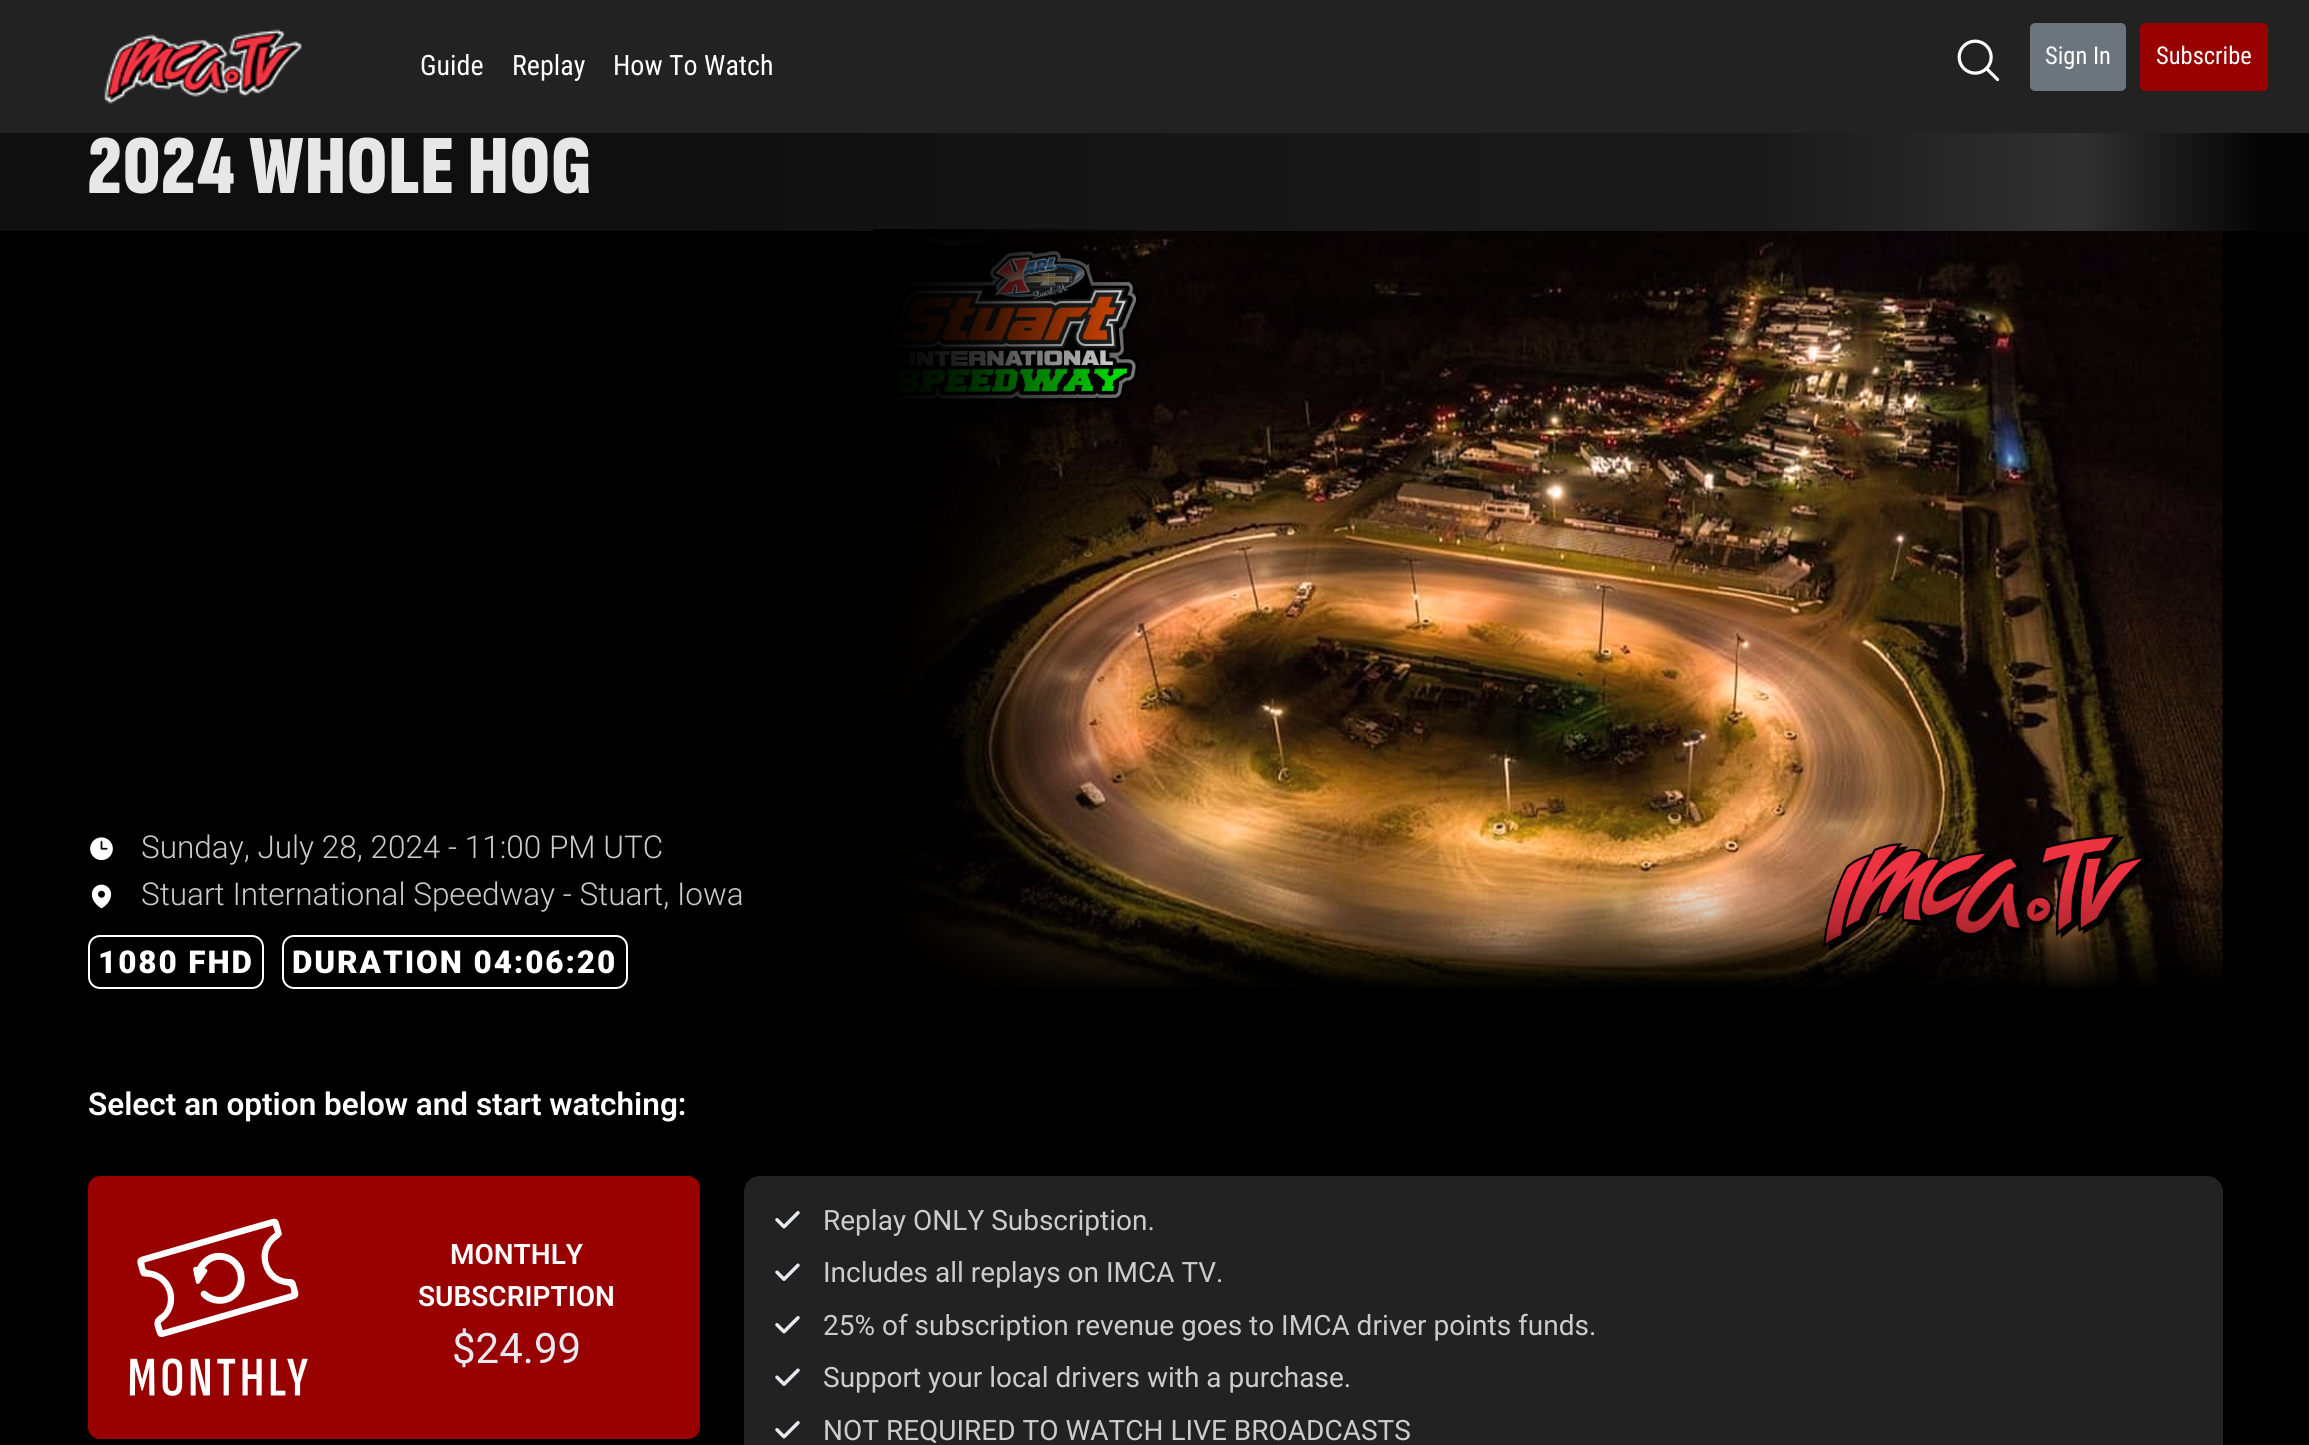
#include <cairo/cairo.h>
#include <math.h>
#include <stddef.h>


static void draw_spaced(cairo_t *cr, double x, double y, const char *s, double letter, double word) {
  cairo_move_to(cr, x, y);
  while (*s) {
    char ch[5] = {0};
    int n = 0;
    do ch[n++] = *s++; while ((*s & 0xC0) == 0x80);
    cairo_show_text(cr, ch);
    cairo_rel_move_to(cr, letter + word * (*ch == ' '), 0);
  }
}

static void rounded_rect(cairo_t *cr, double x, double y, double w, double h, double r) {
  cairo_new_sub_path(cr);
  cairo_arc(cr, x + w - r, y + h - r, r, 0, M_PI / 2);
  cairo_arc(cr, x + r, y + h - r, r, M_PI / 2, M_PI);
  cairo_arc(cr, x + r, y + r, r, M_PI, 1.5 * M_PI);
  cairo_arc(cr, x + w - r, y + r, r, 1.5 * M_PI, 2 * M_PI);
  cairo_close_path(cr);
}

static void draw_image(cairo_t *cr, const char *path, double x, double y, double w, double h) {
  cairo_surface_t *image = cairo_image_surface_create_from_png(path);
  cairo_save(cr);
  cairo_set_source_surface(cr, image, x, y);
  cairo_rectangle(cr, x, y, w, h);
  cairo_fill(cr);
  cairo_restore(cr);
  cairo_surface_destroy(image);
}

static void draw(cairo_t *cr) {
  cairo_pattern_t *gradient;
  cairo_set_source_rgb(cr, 0, 0, 0);
  cairo_paint(cr);
  cairo_set_source_rgb(cr, 34 / 255.0, 34 / 255.0, 34 / 255.0);
  cairo_rectangle(cr, 0, 0, 2309, 133);
  cairo_fill(cr);
  draw_image(cr, "images/1.png", 104, 29, 198, 75);
  draw_image(cr, "images/2.png", 1957, 39, 43, 43);
  cairo_set_source_rgb(cr, 108 / 255.0, 117 / 255.0, 125 / 255.0);
  rounded_rect(cr, 2031, 24, 94, 66, 4);
  cairo_fill_preserve(cr);
  cairo_stroke(cr);
  cairo_set_source_rgb(cr, 153 / 255.0, 0, 0);
  rounded_rect(cr, 2141, 24, 126, 66, 4);
  cairo_fill_preserve(cr);
  cairo_stroke(cr);
  gradient = cairo_pattern_create_linear(0, 168, 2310, 168);
  cairo_pattern_add_color_stop_rgba(gradient, 0.29, 15 / 255.0, 15 / 255.0, 15 / 255.0, 1);
  cairo_pattern_add_color_stop_rgba(gradient, 0.52, 22 / 255.0, 22 / 255.0, 22 / 255.0, 1);
  cairo_pattern_add_color_stop_rgba(gradient, 0.76, 25 / 255.0, 25 / 255.0, 25 / 255.0, 1);
  cairo_pattern_add_color_stop_rgba(gradient, 0.9, 48 / 255.0, 48 / 255.0, 48 / 255.0, 1);
  cairo_pattern_add_color_stop_rgba(gradient, 0.98, 4 / 255.0, 4 / 255.0, 4 / 255.0, 1);
  cairo_set_source(cr, gradient);
  cairo_pattern_destroy(gradient);
  cairo_rectangle(cr, 0, 133, 2309, 98);
  cairo_fill(cr);
  draw_image(cr, "images/3.png", 90, 837, 23, 24);
  draw_image(cr, "images/4.png", 91, 884, 21, 25);
  rounded_rect(cr, 89, 936, 174, 52, 11);
  cairo_set_source_rgb(cr, 1, 1, 1);
  cairo_stroke(cr);
  rounded_rect(cr, 283, 936, 344, 52, 11);
  cairo_stroke(cr);
  draw_image(cr, "images/5.png", 875, 231, 1348, 758);
  gradient = cairo_pattern_create_linear(1549, 991, 1549, 229);
  cairo_pattern_add_color_stop_rgba(gradient, 0, 0, 0, 0, 1);
  cairo_pattern_add_color_stop_rgba(gradient, 0.03, 0, 0, 0, 0.75);
  cairo_pattern_add_color_stop_rgba(gradient, 0.06, 0, 0, 0, 0.5);
  cairo_pattern_add_color_stop_rgba(gradient, 0.08, 0, 0, 0, 0.25);
  cairo_pattern_add_color_stop_rgba(gradient, 0.15, 0, 0, 0, 0);
  cairo_pattern_add_color_stop_rgba(gradient, 1, 0, 0, 0, 0);
  cairo_set_source(cr, gradient);
  cairo_pattern_destroy(gradient);
  cairo_rectangle(cr, 875, 881, 1348, 108);
  cairo_fill(cr);
  gradient = cairo_pattern_create_linear(873, 610, 2224, 610);
  cairo_pattern_add_color_stop_rgba(gradient, 0, 0, 0, 0, 1);
  cairo_pattern_add_color_stop_rgba(gradient, 0.04, 0, 0, 0, 0.7);
  cairo_pattern_add_color_stop_rgba(gradient, 0.08, 0, 0, 0, 0.5);
  cairo_pattern_add_color_stop_rgba(gradient, 0.12, 0, 0, 0, 0.25);
  cairo_pattern_add_color_stop_rgba(gradient, 0.2, 0, 0, 0, 0);
  cairo_pattern_add_color_stop_rgba(gradient, 1, 0, 0, 0, 0);
  cairo_set_source(cr, gradient);
  cairo_pattern_destroy(gradient);
  cairo_rectangle(cr, 873, 229, 261, 759);
  cairo_fill(cr);
  gradient = cairo_pattern_create_linear(823, 804, 2274, 416);
  cairo_pattern_add_color_stop_rgba(gradient, 0, 0, 0, 0, 1);
  cairo_pattern_add_color_stop_rgba(gradient, 0.05, 0, 0, 0, 0.75);
  cairo_pattern_add_color_stop_rgba(gradient, 0.1, 0, 0, 0, 0.5);
  cairo_pattern_add_color_stop_rgba(gradient, 0.2, 0, 0, 0, 0);
  cairo_pattern_add_color_stop_rgba(gradient, 1, 0, 0, 0, 0);
  cairo_set_source(cr, gradient);
  cairo_pattern_destroy(gradient);
  cairo_rectangle(cr, 878, 237, 277, 748);
  cairo_fill(cr);
  gradient = cairo_pattern_create_linear(823, 416, 2274, 804);
  cairo_pattern_add_color_stop_rgba(gradient, 0, 0, 0, 0, 1);
  cairo_pattern_add_color_stop_rgba(gradient, 0.05, 0, 0, 0, 0.75);
  cairo_pattern_add_color_stop_rgba(gradient, 0.1, 0, 0, 0, 0.5);
  cairo_pattern_add_color_stop_rgba(gradient, 0.2, 0, 0, 0, 0);
  cairo_pattern_add_color_stop_rgba(gradient, 1, 0, 0, 0, 0);
  cairo_set_source(cr, gradient);
  cairo_pattern_destroy(gradient);
  cairo_rectangle(cr, 884, 229, 282, 657);
  cairo_fill(cr);
  cairo_set_source_rgb(cr, 153 / 255.0, 0, 0);
  rounded_rect(cr, 88, 1176, 612, 263, 12);
  cairo_fill(cr);
  draw_image(cr, "images/6.png", 129, 1218, 179, 178);
  cairo_set_source_rgb(cr, 34 / 255.0, 34 / 255.0, 34 / 255.0);
  rounded_rect(cr, 744, 1176, 1479, 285, 16);
  cairo_fill(cr);
  draw_image(cr, "images/7.png", 775, 1211, 25, 18);
  draw_image(cr, "images/8.png", 775, 1263, 25, 18);
  draw_image(cr, "images/7.png", 775, 1316, 25, 18);
  draw_image(cr, "images/8.png", 775, 1368, 25, 18);
  draw_image(cr, "images/7.png", 775, 1421, 25, 18);
  cairo_select_font_face(cr, "Roboto Condensed", CAIRO_FONT_SLANT_NORMAL, CAIRO_FONT_WEIGHT_NORMAL);
  cairo_set_font_size(cr, 28);
  cairo_set_source_rgb(cr, 1, 1, 1);
  cairo_move_to(cr, 420, 75);
  cairo_show_text(cr, "Guide");
  cairo_move_to(cr, 512, 75);
  cairo_show_text(cr, "Replay");
  cairo_move_to(cr, 613, 75);
  cairo_show_text(cr, "How To Watch");
  cairo_set_font_size(cr, 24.5);
  cairo_move_to(cr, 2045, 64);
  cairo_show_text(cr, "Sign In");
  cairo_move_to(cr, 2156, 64);
  cairo_show_text(cr, "Subscribe");
  cairo_select_font_face(cr, "Sofia Sans Extra Condensed Black", CAIRO_FONT_SLANT_NORMAL, CAIRO_FONT_WEIGHT_NORMAL);
  cairo_set_font_size(cr, 84);
  cairo_set_source_rgb(cr, 231 / 255.0, 231 / 255.0, 231 / 255.0);
  draw_spaced(cr, 88, 193, "2024 WHOLE HOG", 1.75, 0);
  cairo_select_font_face(cr, "Roboto Light", CAIRO_FONT_SLANT_NORMAL, CAIRO_FONT_WEIGHT_NORMAL);
  cairo_set_font_size(cr, 31.5);
  cairo_set_source_rgb(cr, 204 / 255.0, 204 / 255.0, 204 / 255.0);
  cairo_move_to(cr, 141, 858);
  cairo_show_text(cr, "Sunday, July 28, 2024 - 11:00 PM UTC");
  cairo_move_to(cr, 141, 905);
  cairo_show_text(cr, "Stuart International Speedway - Stuart, Iowa");
  cairo_select_font_face(cr, "Roboto Black", CAIRO_FONT_SLANT_NORMAL, CAIRO_FONT_WEIGHT_NORMAL);
  cairo_set_source_rgb(cr, 1, 1, 1);
  draw_spaced(cr, 98, 973, "1080 FHD", 1.9, 0);
  draw_spaced(cr, 292, 973, "DURATION 04:06:20", 1.9, 0);
  cairo_select_font_face(cr, "Roboto SemiBold", CAIRO_FONT_SLANT_NORMAL, CAIRO_FONT_WEIGHT_NORMAL);
  cairo_move_to(cr, 88, 1115);
  cairo_show_text(cr, "Select an option below and start watching:");
  cairo_set_font_size(cr, 28);
  cairo_move_to(cr, 450, 1264);
  cairo_show_text(cr, "MONTHLY");
  cairo_move_to(cr, 418, 1306);
  cairo_show_text(cr, "SUBSCRIPTION");
  cairo_select_font_face(cr, "Roboto", CAIRO_FONT_SLANT_NORMAL, CAIRO_FONT_WEIGHT_NORMAL);
  cairo_set_font_size(cr, 42);
  cairo_set_source_rgb(cr, 230 / 255.0, 233 / 255.0, 239 / 255.0);
  cairo_move_to(cr, 452, 1363);
  cairo_show_text(cr, "$24.99");
  cairo_set_font_size(cr, 28);
  cairo_set_source_rgb(cr, 204 / 255.0, 204 / 255.0, 204 / 255.0);
  cairo_move_to(cr, 823, 1230);
  cairo_show_text(cr, "Replay ONLY Subscription.");
  cairo_move_to(cr, 823, 1282);
  cairo_show_text(cr, "Includes all replays on IMCA TV.");
  cairo_move_to(cr, 823, 1335);
  cairo_show_text(cr, "25% of subscription revenue goes to IMCA driver points funds.");
  cairo_move_to(cr, 823, 1387);
  cairo_show_text(cr, "Support your local drivers with a purchase.");
  cairo_move_to(cr, 823, 1440);
  cairo_show_text(cr, "NOT REQUIRED TO WATCH LIVE BROADCASTS");
}

int main(void) {
  cairo_surface_t *surface = cairo_image_surface_create(CAIRO_FORMAT_RGB24, 2309, 1445);
  cairo_t *cr = cairo_create(surface);
  cairo_font_options_t *options = cairo_font_options_create();
  cairo_font_options_set_hint_metrics(options, CAIRO_HINT_METRICS_OFF);
  cairo_font_options_set_hint_style(options, CAIRO_HINT_STYLE_NONE);
  cairo_set_font_options(cr, options);
  cairo_set_miter_limit(cr, 4);
  draw(cr);
  cairo_surface_write_to_png(surface, "out.png");
  cairo_font_options_destroy(options);
  cairo_destroy(cr);
  cairo_surface_destroy(surface);
  return 0;
}
